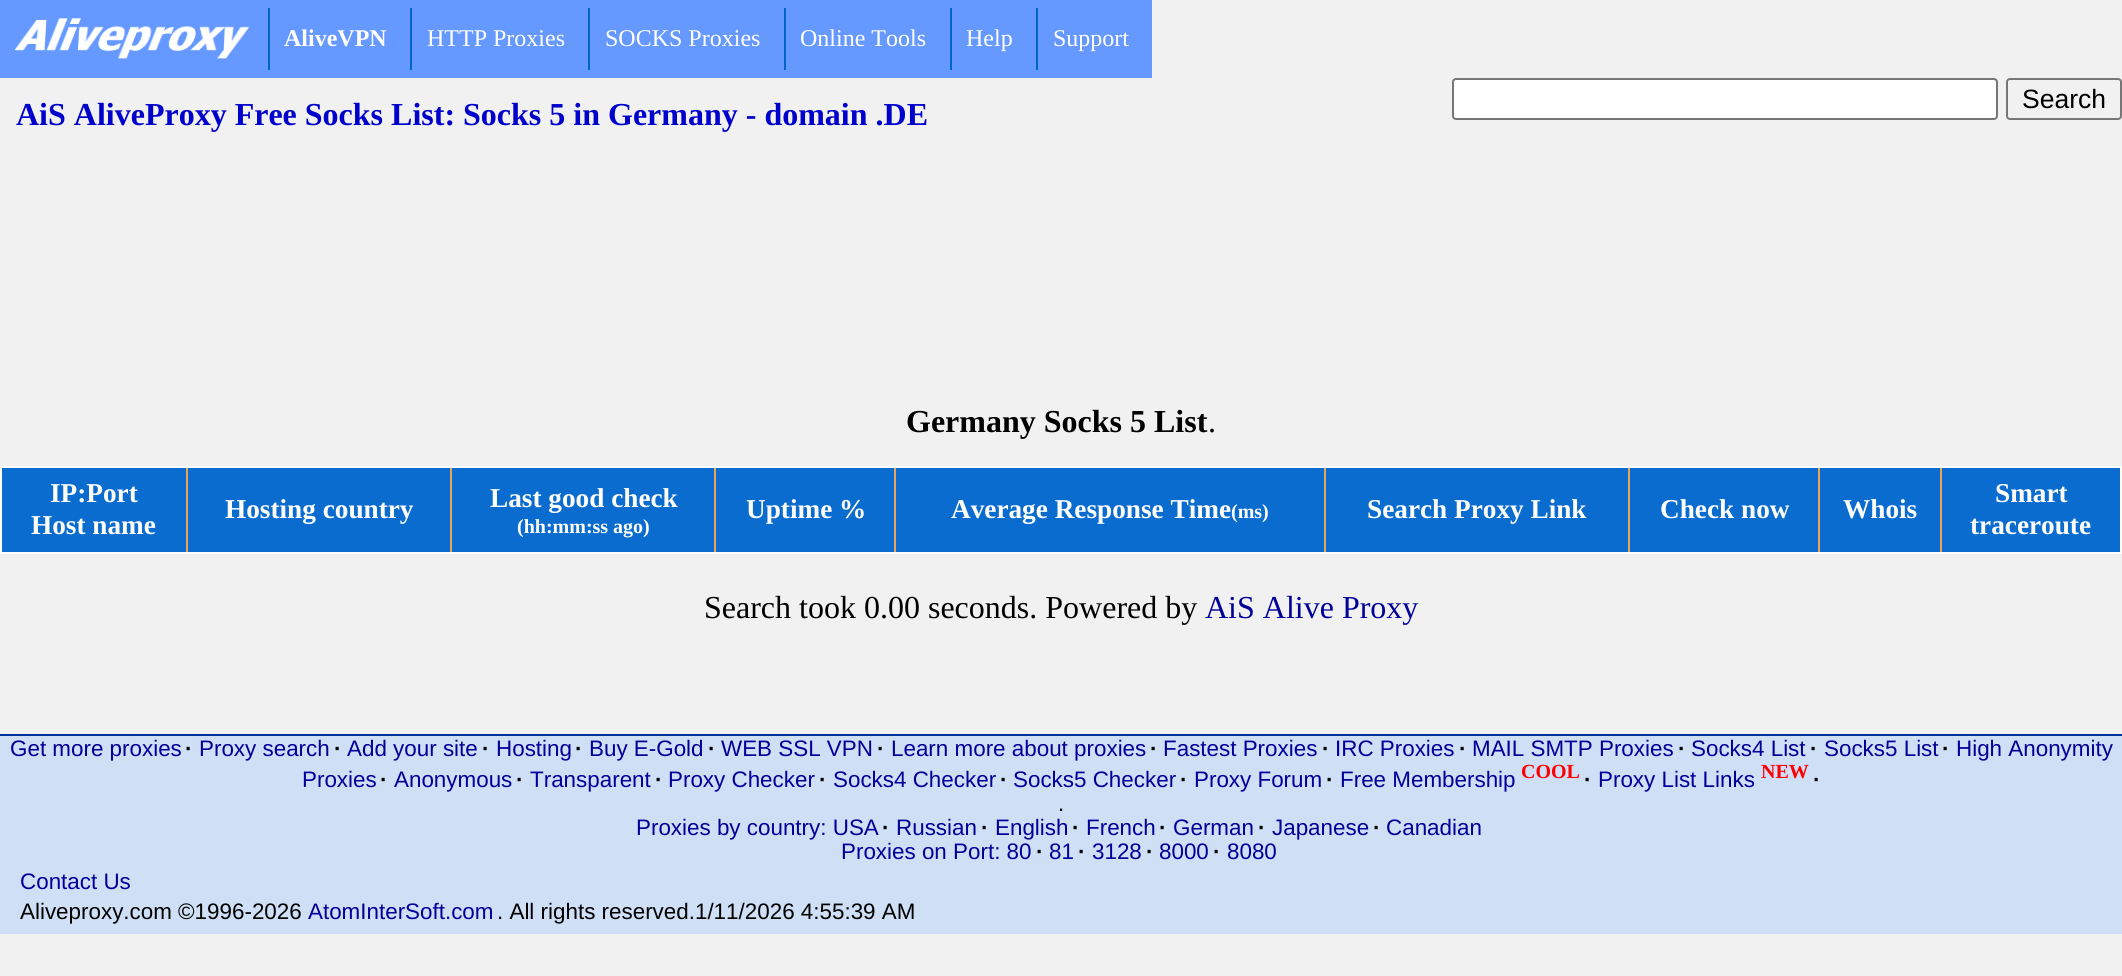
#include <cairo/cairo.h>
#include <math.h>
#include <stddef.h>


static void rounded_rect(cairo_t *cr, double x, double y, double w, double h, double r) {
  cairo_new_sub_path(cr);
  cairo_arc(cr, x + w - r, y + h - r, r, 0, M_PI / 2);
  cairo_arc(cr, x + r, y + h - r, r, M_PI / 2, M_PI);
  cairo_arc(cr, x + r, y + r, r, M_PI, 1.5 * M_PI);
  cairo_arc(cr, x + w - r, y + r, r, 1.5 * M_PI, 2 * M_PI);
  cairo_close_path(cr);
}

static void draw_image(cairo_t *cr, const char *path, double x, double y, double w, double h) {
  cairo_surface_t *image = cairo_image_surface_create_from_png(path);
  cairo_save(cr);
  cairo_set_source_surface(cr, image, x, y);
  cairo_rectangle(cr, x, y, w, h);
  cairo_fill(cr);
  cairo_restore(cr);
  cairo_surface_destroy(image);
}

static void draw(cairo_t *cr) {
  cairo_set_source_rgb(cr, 241 / 255.0, 241 / 255.0, 241 / 255.0);
  cairo_paint(cr);
  cairo_set_source_rgb(cr, 102 / 255.0, 153 / 255.0, 1);
  cairo_rectangle(cr, 0, 0, 1152, 78);
  cairo_fill(cr);
  draw_image(cr, "images/1.png", 14, 18, 236, 41);
  cairo_set_source_rgb(cr, 0, 102 / 255.0, 204 / 255.0);
  cairo_rectangle(cr, 268, 8, 2, 62);
  cairo_fill(cr);
  cairo_rectangle(cr, 410, 8, 2, 62);
  cairo_fill(cr);
  cairo_rectangle(cr, 588, 8, 2, 62);
  cairo_fill(cr);
  cairo_rectangle(cr, 784, 8, 2, 62);
  cairo_fill(cr);
  cairo_rectangle(cr, 950, 8, 2, 62);
  cairo_fill(cr);
  cairo_rectangle(cr, 1036, 8, 2, 62);
  cairo_fill(cr);
  cairo_set_source_rgb(cr, 1, 1, 1);
  rounded_rect(cr, 1453, 79, 544, 40, 3);
  cairo_fill_preserve(cr);
  cairo_set_source_rgb(cr, 118 / 255.0, 118 / 255.0, 118 / 255.0);
  cairo_stroke(cr);
  rounded_rect(cr, 2007, 79, 114, 40, 3);
  cairo_stroke(cr);
  cairo_set_source_rgb(cr, 1, 1, 1);
  cairo_rectangle(cr, 0, 466, 2122, 88);
  cairo_fill(cr);
  cairo_set_source_rgb(cr, 233 / 255.0, 165 / 255.0, 91 / 255.0);
  cairo_rectangle(cr, 186, 468, 1756, 84);
  cairo_fill(cr);
  cairo_set_source_rgb(cr, 10 / 255.0, 108 / 255.0, 206 / 255.0);
  cairo_rectangle(cr, 2, 468, 184, 84);
  cairo_fill(cr);
  cairo_rectangle(cr, 188, 468, 262, 84);
  cairo_fill(cr);
  cairo_rectangle(cr, 452, 468, 262, 84);
  cairo_fill(cr);
  cairo_rectangle(cr, 716, 468, 178, 84);
  cairo_fill(cr);
  cairo_rectangle(cr, 896, 468, 428, 84);
  cairo_fill(cr);
  cairo_rectangle(cr, 1326, 468, 302, 84);
  cairo_fill(cr);
  cairo_rectangle(cr, 1630, 468, 188, 84);
  cairo_fill(cr);
  cairo_rectangle(cr, 1820, 468, 120, 84);
  cairo_fill(cr);
  cairo_rectangle(cr, 1942, 468, 178, 84);
  cairo_fill(cr);
  cairo_set_source_rgb(cr, 0, 52 / 255.0, 153 / 255.0);
  cairo_rectangle(cr, 0, 734, 2122, 2);
  cairo_fill(cr);
  cairo_set_source_rgb(cr, 206 / 255.0, 223 / 255.0, 246 / 255.0);
  cairo_rectangle(cr, 0, 736, 2122, 198);
  cairo_fill(cr);
  cairo_select_font_face(cr, "Liberation Serif", CAIRO_FONT_SLANT_NORMAL, CAIRO_FONT_WEIGHT_BOLD);
  cairo_set_font_size(cr, 24);
  cairo_set_source_rgb(cr, 1, 1, 1);
  cairo_move_to(cr, 284, 46);
  cairo_show_text(cr, "AliveVPN");
  cairo_select_font_face(cr, "Liberation Serif", CAIRO_FONT_SLANT_NORMAL, CAIRO_FONT_WEIGHT_NORMAL);
  cairo_move_to(cr, 427, 46);
  cairo_show_text(cr, "HTTP Proxies");
  cairo_move_to(cr, 605, 46);
  cairo_show_text(cr, "SOCKS Proxies");
  cairo_move_to(cr, 800, 46);
  cairo_show_text(cr, "Online Tools");
  cairo_move_to(cr, 966, 46);
  cairo_show_text(cr, "Help");
  cairo_move_to(cr, 1053, 46);
  cairo_show_text(cr, "Support");
  cairo_select_font_face(cr, "Liberation Sans", CAIRO_FONT_SLANT_NORMAL, CAIRO_FONT_WEIGHT_NORMAL);
  cairo_set_font_size(cr, 26.5);
  cairo_set_source_rgb(cr, 0, 0, 0);
  cairo_move_to(cr, 2022, 108);
  cairo_show_text(cr, "Search");
  cairo_select_font_face(cr, "Liberation Serif", CAIRO_FONT_SLANT_NORMAL, CAIRO_FONT_WEIGHT_BOLD);
  cairo_set_font_size(cr, 32);
  cairo_set_source_rgb(cr, 0, 0, 205 / 255.0);
  cairo_move_to(cr, 16, 125);
  cairo_show_text(cr, "AiS AliveProxy Free Socks List: Socks 5 in Germany - domain .DE");
  cairo_set_source_rgb(cr, 0, 0, 0);
  cairo_move_to(cr, 906, 432);
  cairo_show_text(cr, "Germany Socks 5 List");
  cairo_select_font_face(cr, "Liberation Serif", CAIRO_FONT_SLANT_NORMAL, CAIRO_FONT_WEIGHT_NORMAL);
  cairo_move_to(cr, 1208, 432);
  cairo_show_text(cr, ".");
  cairo_select_font_face(cr, "Liberation Serif", CAIRO_FONT_SLANT_NORMAL, CAIRO_FONT_WEIGHT_BOLD);
  cairo_set_font_size(cr, 27.25);
  cairo_set_source_rgb(cr, 1, 1, 1);
  cairo_move_to(cr, 50, 502);
  cairo_show_text(cr, "IP:Port");
  cairo_move_to(cr, 31, 534);
  cairo_show_text(cr, "Host name");
  cairo_move_to(cr, 225, 518);
  cairo_show_text(cr, "Hosting country");
  cairo_move_to(cr, 490, 507);
  cairo_show_text(cr, "Last good check");
  cairo_set_font_size(cr, 20);
  cairo_move_to(cr, 517, 533);
  cairo_show_text(cr, "(hh:mm:ss ago)");
  cairo_set_font_size(cr, 27.25);
  cairo_move_to(cr, 746, 518);
  cairo_show_text(cr, "Uptime %");
  cairo_move_to(cr, 951, 518);
  cairo_show_text(cr, "Average Response Time");
  cairo_set_font_size(cr, 20);
  cairo_move_to(cr, 1231, 518);
  cairo_show_text(cr, "(ms)");
  cairo_set_font_size(cr, 27.25);
  cairo_move_to(cr, 1367, 518);
  cairo_show_text(cr, "Search Proxy Link");
  cairo_move_to(cr, 1660, 518);
  cairo_show_text(cr, "Check now");
  cairo_move_to(cr, 1843, 518);
  cairo_show_text(cr, "Whois");
  cairo_move_to(cr, 1995, 502);
  cairo_show_text(cr, "Smart");
  cairo_move_to(cr, 1970, 534);
  cairo_show_text(cr, "traceroute");
  cairo_select_font_face(cr, "Liberation Serif", CAIRO_FONT_SLANT_NORMAL, CAIRO_FONT_WEIGHT_NORMAL);
  cairo_set_font_size(cr, 32);
  cairo_set_source_rgb(cr, 0, 0, 0);
  cairo_move_to(cr, 704, 618);
  cairo_show_text(cr, "Search took 0.00 seconds. Powered by");
  cairo_set_source_rgb(cr, 0, 0, 153 / 255.0);
  cairo_move_to(cr, 1205, 618);
  cairo_show_text(cr, "AiS Alive Proxy");
  cairo_select_font_face(cr, "Liberation Sans", CAIRO_FONT_SLANT_NORMAL, CAIRO_FONT_WEIGHT_NORMAL);
  cairo_set_font_size(cr, 22.4);
  cairo_move_to(cr, 10, 756);
  cairo_show_text(cr, "Get more proxies");
  cairo_select_font_face(cr, "Liberation Sans", CAIRO_FONT_SLANT_NORMAL, CAIRO_FONT_WEIGHT_BOLD);
  cairo_set_source_rgb(cr, 0, 0, 0);
  cairo_move_to(cr, 185, 756);
  cairo_show_text(cr, "·");
  cairo_select_font_face(cr, "Liberation Sans", CAIRO_FONT_SLANT_NORMAL, CAIRO_FONT_WEIGHT_NORMAL);
  cairo_set_source_rgb(cr, 0, 0, 153 / 255.0);
  cairo_move_to(cr, 199, 756);
  cairo_show_text(cr, "Proxy search");
  cairo_select_font_face(cr, "Liberation Sans", CAIRO_FONT_SLANT_NORMAL, CAIRO_FONT_WEIGHT_BOLD);
  cairo_set_source_rgb(cr, 0, 0, 0);
  cairo_move_to(cr, 334, 756);
  cairo_show_text(cr, "·");
  cairo_select_font_face(cr, "Liberation Sans", CAIRO_FONT_SLANT_NORMAL, CAIRO_FONT_WEIGHT_NORMAL);
  cairo_set_source_rgb(cr, 0, 0, 153 / 255.0);
  cairo_move_to(cr, 347, 756);
  cairo_show_text(cr, "Add your site");
  cairo_select_font_face(cr, "Liberation Sans", CAIRO_FONT_SLANT_NORMAL, CAIRO_FONT_WEIGHT_BOLD);
  cairo_set_source_rgb(cr, 0, 0, 0);
  cairo_move_to(cr, 482, 756);
  cairo_show_text(cr, "·");
  cairo_select_font_face(cr, "Liberation Sans", CAIRO_FONT_SLANT_NORMAL, CAIRO_FONT_WEIGHT_NORMAL);
  cairo_set_source_rgb(cr, 0, 0, 153 / 255.0);
  cairo_move_to(cr, 496, 756);
  cairo_show_text(cr, "Hosting");
  cairo_select_font_face(cr, "Liberation Sans", CAIRO_FONT_SLANT_NORMAL, CAIRO_FONT_WEIGHT_BOLD);
  cairo_set_source_rgb(cr, 0, 0, 0);
  cairo_move_to(cr, 575, 756);
  cairo_show_text(cr, "·");
  cairo_select_font_face(cr, "Liberation Sans", CAIRO_FONT_SLANT_NORMAL, CAIRO_FONT_WEIGHT_NORMAL);
  cairo_set_source_rgb(cr, 0, 0, 153 / 255.0);
  cairo_move_to(cr, 589, 756);
  cairo_show_text(cr, "Buy E-Gold");
  cairo_select_font_face(cr, "Liberation Sans", CAIRO_FONT_SLANT_NORMAL, CAIRO_FONT_WEIGHT_BOLD);
  cairo_set_source_rgb(cr, 0, 0, 0);
  cairo_move_to(cr, 708, 756);
  cairo_show_text(cr, "·");
  cairo_select_font_face(cr, "Liberation Sans", CAIRO_FONT_SLANT_NORMAL, CAIRO_FONT_WEIGHT_NORMAL);
  cairo_set_source_rgb(cr, 0, 0, 153 / 255.0);
  cairo_move_to(cr, 721, 756);
  cairo_show_text(cr, "WEB SSL VPN");
  cairo_select_font_face(cr, "Liberation Sans", CAIRO_FONT_SLANT_NORMAL, CAIRO_FONT_WEIGHT_BOLD);
  cairo_set_source_rgb(cr, 0, 0, 0);
  cairo_move_to(cr, 877, 756);
  cairo_show_text(cr, "·");
  cairo_select_font_face(cr, "Liberation Sans", CAIRO_FONT_SLANT_NORMAL, CAIRO_FONT_WEIGHT_NORMAL);
  cairo_set_source_rgb(cr, 0, 0, 153 / 255.0);
  cairo_move_to(cr, 891, 756);
  cairo_show_text(cr, "Learn more about proxies");
  cairo_select_font_face(cr, "Liberation Sans", CAIRO_FONT_SLANT_NORMAL, CAIRO_FONT_WEIGHT_BOLD);
  cairo_set_source_rgb(cr, 0, 0, 0);
  cairo_move_to(cr, 1150, 756);
  cairo_show_text(cr, "·");
  cairo_select_font_face(cr, "Liberation Sans", CAIRO_FONT_SLANT_NORMAL, CAIRO_FONT_WEIGHT_NORMAL);
  cairo_set_source_rgb(cr, 0, 0, 153 / 255.0);
  cairo_move_to(cr, 1163, 756);
  cairo_show_text(cr, "Fastest Proxies");
  cairo_select_font_face(cr, "Liberation Sans", CAIRO_FONT_SLANT_NORMAL, CAIRO_FONT_WEIGHT_BOLD);
  cairo_set_source_rgb(cr, 0, 0, 0);
  cairo_move_to(cr, 1322, 756);
  cairo_show_text(cr, "·");
  cairo_select_font_face(cr, "Liberation Sans", CAIRO_FONT_SLANT_NORMAL, CAIRO_FONT_WEIGHT_NORMAL);
  cairo_set_source_rgb(cr, 0, 0, 153 / 255.0);
  cairo_move_to(cr, 1335, 756);
  cairo_show_text(cr, "IRC Proxies");
  cairo_select_font_face(cr, "Liberation Sans", CAIRO_FONT_SLANT_NORMAL, CAIRO_FONT_WEIGHT_BOLD);
  cairo_set_source_rgb(cr, 0, 0, 0);
  cairo_move_to(cr, 1459, 756);
  cairo_show_text(cr, "·");
  cairo_select_font_face(cr, "Liberation Sans", CAIRO_FONT_SLANT_NORMAL, CAIRO_FONT_WEIGHT_NORMAL);
  cairo_set_source_rgb(cr, 0, 0, 153 / 255.0);
  cairo_move_to(cr, 1472, 756);
  cairo_show_text(cr, "MAIL SMTP Proxies");
  cairo_select_font_face(cr, "Liberation Sans", CAIRO_FONT_SLANT_NORMAL, CAIRO_FONT_WEIGHT_BOLD);
  cairo_set_source_rgb(cr, 0, 0, 0);
  cairo_move_to(cr, 1678, 756);
  cairo_show_text(cr, "·");
  cairo_select_font_face(cr, "Liberation Sans", CAIRO_FONT_SLANT_NORMAL, CAIRO_FONT_WEIGHT_NORMAL);
  cairo_set_source_rgb(cr, 0, 0, 153 / 255.0);
  cairo_move_to(cr, 1691, 756);
  cairo_show_text(cr, "Socks4 List");
  cairo_select_font_face(cr, "Liberation Sans", CAIRO_FONT_SLANT_NORMAL, CAIRO_FONT_WEIGHT_BOLD);
  cairo_set_source_rgb(cr, 0, 0, 0);
  cairo_move_to(cr, 1810, 756);
  cairo_show_text(cr, "·");
  cairo_select_font_face(cr, "Liberation Sans", CAIRO_FONT_SLANT_NORMAL, CAIRO_FONT_WEIGHT_NORMAL);
  cairo_set_source_rgb(cr, 0, 0, 153 / 255.0);
  cairo_move_to(cr, 1824, 756);
  cairo_show_text(cr, "Socks5 List");
  cairo_select_font_face(cr, "Liberation Sans", CAIRO_FONT_SLANT_NORMAL, CAIRO_FONT_WEIGHT_BOLD);
  cairo_set_source_rgb(cr, 0, 0, 0);
  cairo_move_to(cr, 1942, 756);
  cairo_show_text(cr, "·");
  cairo_select_font_face(cr, "Liberation Sans", CAIRO_FONT_SLANT_NORMAL, CAIRO_FONT_WEIGHT_NORMAL);
  cairo_set_source_rgb(cr, 0, 0, 153 / 255.0);
  cairo_move_to(cr, 1956, 756);
  cairo_show_text(cr, "High Anonymity");
  cairo_move_to(cr, 302, 787);
  cairo_show_text(cr, "Proxies");
  cairo_select_font_face(cr, "Liberation Sans", CAIRO_FONT_SLANT_NORMAL, CAIRO_FONT_WEIGHT_BOLD);
  cairo_set_source_rgb(cr, 0, 0, 0);
  cairo_move_to(cr, 380, 787);
  cairo_show_text(cr, "·");
  cairo_select_font_face(cr, "Liberation Sans", CAIRO_FONT_SLANT_NORMAL, CAIRO_FONT_WEIGHT_NORMAL);
  cairo_set_source_rgb(cr, 0, 0, 153 / 255.0);
  cairo_move_to(cr, 394, 787);
  cairo_show_text(cr, "Anonymous");
  cairo_select_font_face(cr, "Liberation Sans", CAIRO_FONT_SLANT_NORMAL, CAIRO_FONT_WEIGHT_BOLD);
  cairo_set_source_rgb(cr, 0, 0, 0);
  cairo_move_to(cr, 516, 787);
  cairo_show_text(cr, "·");
  cairo_select_font_face(cr, "Liberation Sans", CAIRO_FONT_SLANT_NORMAL, CAIRO_FONT_WEIGHT_NORMAL);
  cairo_set_source_rgb(cr, 0, 0, 153 / 255.0);
  cairo_move_to(cr, 530, 787);
  cairo_show_text(cr, "Transparent");
  cairo_select_font_face(cr, "Liberation Sans", CAIRO_FONT_SLANT_NORMAL, CAIRO_FONT_WEIGHT_BOLD);
  cairo_set_source_rgb(cr, 0, 0, 0);
  cairo_move_to(cr, 655, 787);
  cairo_show_text(cr, "·");
  cairo_select_font_face(cr, "Liberation Sans", CAIRO_FONT_SLANT_NORMAL, CAIRO_FONT_WEIGHT_NORMAL);
  cairo_set_source_rgb(cr, 0, 0, 153 / 255.0);
  cairo_move_to(cr, 668, 787);
  cairo_show_text(cr, "Proxy Checker");
  cairo_select_font_face(cr, "Liberation Sans", CAIRO_FONT_SLANT_NORMAL, CAIRO_FONT_WEIGHT_BOLD);
  cairo_set_source_rgb(cr, 0, 0, 0);
  cairo_move_to(cr, 819, 787);
  cairo_show_text(cr, "·");
  cairo_select_font_face(cr, "Liberation Sans", CAIRO_FONT_SLANT_NORMAL, CAIRO_FONT_WEIGHT_NORMAL);
  cairo_set_source_rgb(cr, 0, 0, 153 / 255.0);
  cairo_move_to(cr, 833, 787);
  cairo_show_text(cr, "Socks4 Checker");
  cairo_select_font_face(cr, "Liberation Sans", CAIRO_FONT_SLANT_NORMAL, CAIRO_FONT_WEIGHT_BOLD);
  cairo_set_source_rgb(cr, 0, 0, 0);
  cairo_move_to(cr, 1000, 787);
  cairo_show_text(cr, "·");
  cairo_select_font_face(cr, "Liberation Sans", CAIRO_FONT_SLANT_NORMAL, CAIRO_FONT_WEIGHT_NORMAL);
  cairo_set_source_rgb(cr, 0, 0, 153 / 255.0);
  cairo_move_to(cr, 1013, 787);
  cairo_show_text(cr, "Socks5 Checker");
  cairo_select_font_face(cr, "Liberation Sans", CAIRO_FONT_SLANT_NORMAL, CAIRO_FONT_WEIGHT_BOLD);
  cairo_set_source_rgb(cr, 0, 0, 0);
  cairo_move_to(cr, 1180, 787);
  cairo_show_text(cr, "·");
  cairo_select_font_face(cr, "Liberation Sans", CAIRO_FONT_SLANT_NORMAL, CAIRO_FONT_WEIGHT_NORMAL);
  cairo_set_source_rgb(cr, 0, 0, 153 / 255.0);
  cairo_move_to(cr, 1194, 787);
  cairo_show_text(cr, "Proxy Forum");
  cairo_select_font_face(cr, "Liberation Sans", CAIRO_FONT_SLANT_NORMAL, CAIRO_FONT_WEIGHT_BOLD);
  cairo_set_source_rgb(cr, 0, 0, 0);
  cairo_move_to(cr, 1326, 787);
  cairo_show_text(cr, "·");
  cairo_select_font_face(cr, "Liberation Sans", CAIRO_FONT_SLANT_NORMAL, CAIRO_FONT_WEIGHT_NORMAL);
  cairo_set_source_rgb(cr, 0, 0, 153 / 255.0);
  cairo_move_to(cr, 1340, 787);
  cairo_show_text(cr, "Free Membership");
  cairo_select_font_face(cr, "Liberation Serif", CAIRO_FONT_SLANT_NORMAL, CAIRO_FONT_WEIGHT_BOLD);
  cairo_set_font_size(cr, 20);
  cairo_set_source_rgb(cr, 1, 0, 0);
  cairo_move_to(cr, 1521, 778);
  cairo_show_text(cr, "COOL");
  cairo_select_font_face(cr, "Liberation Sans", CAIRO_FONT_SLANT_NORMAL, CAIRO_FONT_WEIGHT_BOLD);
  cairo_set_font_size(cr, 22.4);
  cairo_set_source_rgb(cr, 0, 0, 0);
  cairo_move_to(cr, 1584, 787);
  cairo_show_text(cr, "·");
  cairo_select_font_face(cr, "Liberation Sans", CAIRO_FONT_SLANT_NORMAL, CAIRO_FONT_WEIGHT_NORMAL);
  cairo_set_source_rgb(cr, 0, 0, 153 / 255.0);
  cairo_move_to(cr, 1598, 787);
  cairo_show_text(cr, "Proxy List Links");
  cairo_select_font_face(cr, "Liberation Serif", CAIRO_FONT_SLANT_NORMAL, CAIRO_FONT_WEIGHT_BOLD);
  cairo_set_font_size(cr, 20);
  cairo_set_source_rgb(cr, 1, 0, 0);
  cairo_move_to(cr, 1761, 778);
  cairo_show_text(cr, "NEW");
  cairo_select_font_face(cr, "Liberation Sans", CAIRO_FONT_SLANT_NORMAL, CAIRO_FONT_WEIGHT_BOLD);
  cairo_set_font_size(cr, 22.4);
  cairo_set_source_rgb(cr, 0, 0, 0);
  cairo_move_to(cr, 1813, 787);
  cairo_show_text(cr, "·");
  cairo_select_font_face(cr, "Liberation Sans", CAIRO_FONT_SLANT_NORMAL, CAIRO_FONT_WEIGHT_NORMAL);
  cairo_move_to(cr, 1058, 811);
  cairo_show_text(cr, ".");
  cairo_set_source_rgb(cr, 0, 0, 153 / 255.0);
  cairo_move_to(cr, 636, 835);
  cairo_show_text(cr, "Proxies by country: USA");
  cairo_select_font_face(cr, "Liberation Sans", CAIRO_FONT_SLANT_NORMAL, CAIRO_FONT_WEIGHT_BOLD);
  cairo_set_source_rgb(cr, 0, 0, 0);
  cairo_move_to(cr, 882, 835);
  cairo_show_text(cr, "·");
  cairo_select_font_face(cr, "Liberation Sans", CAIRO_FONT_SLANT_NORMAL, CAIRO_FONT_WEIGHT_NORMAL);
  cairo_set_source_rgb(cr, 0, 0, 153 / 255.0);
  cairo_move_to(cr, 896, 835);
  cairo_show_text(cr, "Russian");
  cairo_select_font_face(cr, "Liberation Sans", CAIRO_FONT_SLANT_NORMAL, CAIRO_FONT_WEIGHT_BOLD);
  cairo_set_source_rgb(cr, 0, 0, 0);
  cairo_move_to(cr, 981, 835);
  cairo_show_text(cr, "·");
  cairo_select_font_face(cr, "Liberation Sans", CAIRO_FONT_SLANT_NORMAL, CAIRO_FONT_WEIGHT_NORMAL);
  cairo_set_source_rgb(cr, 0, 0, 153 / 255.0);
  cairo_move_to(cr, 995, 835);
  cairo_show_text(cr, "English");
  cairo_select_font_face(cr, "Liberation Sans", CAIRO_FONT_SLANT_NORMAL, CAIRO_FONT_WEIGHT_BOLD);
  cairo_set_source_rgb(cr, 0, 0, 0);
  cairo_move_to(cr, 1072, 835);
  cairo_show_text(cr, "·");
  cairo_select_font_face(cr, "Liberation Sans", CAIRO_FONT_SLANT_NORMAL, CAIRO_FONT_WEIGHT_NORMAL);
  cairo_set_source_rgb(cr, 0, 0, 153 / 255.0);
  cairo_move_to(cr, 1086, 835);
  cairo_show_text(cr, "French");
  cairo_select_font_face(cr, "Liberation Sans", CAIRO_FONT_SLANT_NORMAL, CAIRO_FONT_WEIGHT_BOLD);
  cairo_set_source_rgb(cr, 0, 0, 0);
  cairo_move_to(cr, 1159, 835);
  cairo_show_text(cr, "·");
  cairo_select_font_face(cr, "Liberation Sans", CAIRO_FONT_SLANT_NORMAL, CAIRO_FONT_WEIGHT_NORMAL);
  cairo_set_source_rgb(cr, 0, 0, 153 / 255.0);
  cairo_move_to(cr, 1173, 835);
  cairo_show_text(cr, "German");
  cairo_select_font_face(cr, "Liberation Sans", CAIRO_FONT_SLANT_NORMAL, CAIRO_FONT_WEIGHT_BOLD);
  cairo_set_source_rgb(cr, 0, 0, 0);
  cairo_move_to(cr, 1258, 835);
  cairo_show_text(cr, "·");
  cairo_select_font_face(cr, "Liberation Sans", CAIRO_FONT_SLANT_NORMAL, CAIRO_FONT_WEIGHT_NORMAL);
  cairo_set_source_rgb(cr, 0, 0, 153 / 255.0);
  cairo_move_to(cr, 1272, 835);
  cairo_show_text(cr, "Japanese");
  cairo_select_font_face(cr, "Liberation Sans", CAIRO_FONT_SLANT_NORMAL, CAIRO_FONT_WEIGHT_BOLD);
  cairo_set_source_rgb(cr, 0, 0, 0);
  cairo_move_to(cr, 1373, 835);
  cairo_show_text(cr, "·");
  cairo_select_font_face(cr, "Liberation Sans", CAIRO_FONT_SLANT_NORMAL, CAIRO_FONT_WEIGHT_NORMAL);
  cairo_set_source_rgb(cr, 0, 0, 153 / 255.0);
  cairo_move_to(cr, 1386, 835);
  cairo_show_text(cr, "Canadian");
  cairo_move_to(cr, 841, 859);
  cairo_show_text(cr, "Proxies on Port: 80");
  cairo_select_font_face(cr, "Liberation Sans", CAIRO_FONT_SLANT_NORMAL, CAIRO_FONT_WEIGHT_BOLD);
  cairo_set_source_rgb(cr, 0, 0, 0);
  cairo_move_to(cr, 1036, 859);
  cairo_show_text(cr, "·");
  cairo_select_font_face(cr, "Liberation Sans", CAIRO_FONT_SLANT_NORMAL, CAIRO_FONT_WEIGHT_NORMAL);
  cairo_set_source_rgb(cr, 0, 0, 153 / 255.0);
  cairo_move_to(cr, 1049, 859);
  cairo_show_text(cr, "81");
  cairo_select_font_face(cr, "Liberation Sans", CAIRO_FONT_SLANT_NORMAL, CAIRO_FONT_WEIGHT_BOLD);
  cairo_set_source_rgb(cr, 0, 0, 0);
  cairo_move_to(cr, 1078, 859);
  cairo_show_text(cr, "·");
  cairo_select_font_face(cr, "Liberation Sans", CAIRO_FONT_SLANT_NORMAL, CAIRO_FONT_WEIGHT_NORMAL);
  cairo_set_source_rgb(cr, 0, 0, 153 / 255.0);
  cairo_move_to(cr, 1092, 859);
  cairo_show_text(cr, "3128");
  cairo_select_font_face(cr, "Liberation Sans", CAIRO_FONT_SLANT_NORMAL, CAIRO_FONT_WEIGHT_BOLD);
  cairo_set_source_rgb(cr, 0, 0, 0);
  cairo_move_to(cr, 1146, 859);
  cairo_show_text(cr, "·");
  cairo_select_font_face(cr, "Liberation Sans", CAIRO_FONT_SLANT_NORMAL, CAIRO_FONT_WEIGHT_NORMAL);
  cairo_set_source_rgb(cr, 0, 0, 153 / 255.0);
  cairo_move_to(cr, 1159, 859);
  cairo_show_text(cr, "8000");
  cairo_select_font_face(cr, "Liberation Sans", CAIRO_FONT_SLANT_NORMAL, CAIRO_FONT_WEIGHT_BOLD);
  cairo_set_source_rgb(cr, 0, 0, 0);
  cairo_move_to(cr, 1213, 859);
  cairo_show_text(cr, "·");
  cairo_select_font_face(cr, "Liberation Sans", CAIRO_FONT_SLANT_NORMAL, CAIRO_FONT_WEIGHT_NORMAL);
  cairo_set_source_rgb(cr, 0, 0, 153 / 255.0);
  cairo_move_to(cr, 1227, 859);
  cairo_show_text(cr, "8080");
  cairo_move_to(cr, 20, 889);
  cairo_show_text(cr, "Contact Us");
  cairo_set_source_rgb(cr, 0, 0, 0);
  cairo_move_to(cr, 20, 919);
  cairo_show_text(cr, "Aliveproxy.com ©1996-2026");
  cairo_set_source_rgb(cr, 0, 0, 153 / 255.0);
  cairo_move_to(cr, 308, 919);
  cairo_show_text(cr, "AtomInterSoft.com");
  cairo_set_source_rgb(cr, 0, 0, 0);
  cairo_move_to(cr, 497, 919);
  cairo_show_text(cr, ". All rights reserved.1/11/2026 4:55:39 AM");
}

int main(void) {
  cairo_surface_t *surface = cairo_image_surface_create(CAIRO_FORMAT_RGB24, 2122, 976);
  cairo_t *cr = cairo_create(surface);
  cairo_font_options_t *options = cairo_font_options_create();
  cairo_font_options_set_hint_metrics(options, CAIRO_HINT_METRICS_OFF);
  cairo_font_options_set_hint_style(options, CAIRO_HINT_STYLE_NONE);
  cairo_set_font_options(cr, options);
  cairo_set_miter_limit(cr, 4);
  draw(cr);
  cairo_surface_write_to_png(surface, "out.png");
  cairo_font_options_destroy(options);
  cairo_destroy(cr);
  cairo_surface_destroy(surface);
  return 0;
}
